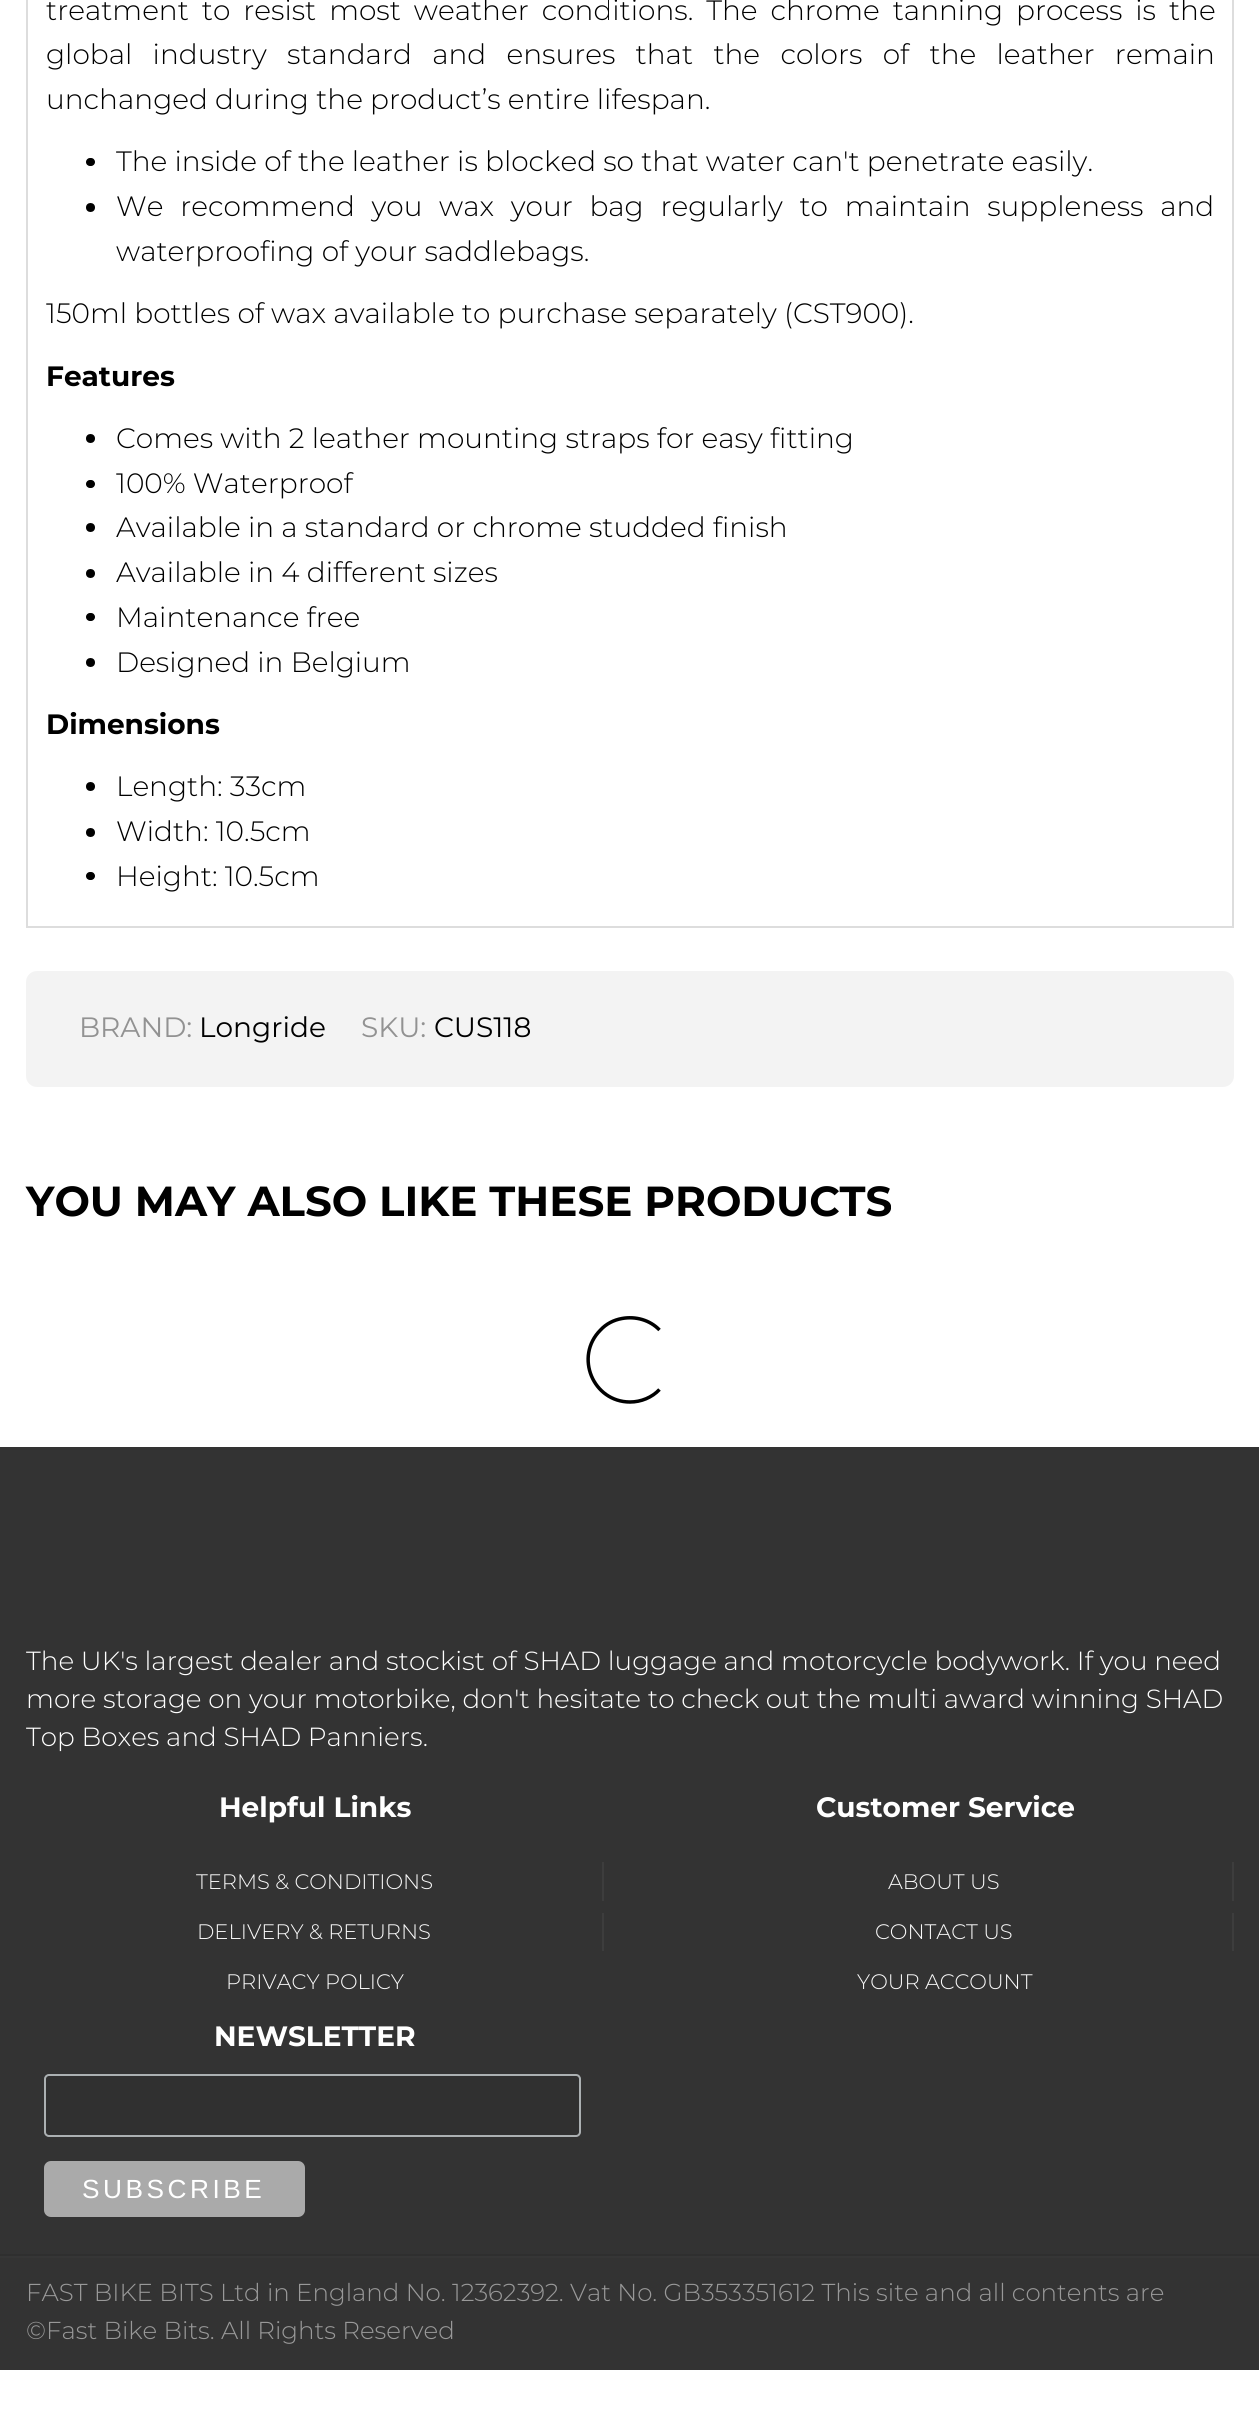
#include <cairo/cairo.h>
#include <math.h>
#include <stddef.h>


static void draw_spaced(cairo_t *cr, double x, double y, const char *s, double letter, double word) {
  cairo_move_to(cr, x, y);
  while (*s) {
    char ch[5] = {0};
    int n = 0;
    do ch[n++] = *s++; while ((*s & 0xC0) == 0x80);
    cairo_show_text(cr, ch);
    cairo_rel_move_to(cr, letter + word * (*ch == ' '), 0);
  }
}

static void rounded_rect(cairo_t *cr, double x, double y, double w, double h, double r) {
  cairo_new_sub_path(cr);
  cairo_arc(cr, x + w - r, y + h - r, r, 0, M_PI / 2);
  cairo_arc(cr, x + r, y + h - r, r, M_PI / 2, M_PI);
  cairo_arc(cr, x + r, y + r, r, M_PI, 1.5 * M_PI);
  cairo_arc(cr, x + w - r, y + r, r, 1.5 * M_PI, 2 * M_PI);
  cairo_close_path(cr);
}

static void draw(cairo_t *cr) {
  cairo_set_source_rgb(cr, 1, 1, 1);
  cairo_paint(cr);
  cairo_set_source_rgb(cr, 221 / 255.0, 221 / 255.0, 221 / 255.0);
  cairo_rectangle(cr, 1232, 0, 2, 928);
  cairo_fill(cr);
  cairo_rectangle(cr, 26, 0, 2, 928);
  cairo_fill(cr);
  cairo_rectangle(cr, 28, 926, 1204, 2);
  cairo_fill(cr);
  cairo_set_source_rgb(cr, 0, 0, 0);
  rounded_rect(cr, 86, 158, 9, 8, 4);
  cairo_fill(cr);
  cairo_arc(cr, 90.5, 207.5, 4.5, 0, 2 * M_PI);
  cairo_fill(cr);
  cairo_arc(cr, 90.5, 438.5, 4.5, 0, 2 * M_PI);
  cairo_fill(cr);
  rounded_rect(cr, 86, 480, 9, 8, 4);
  cairo_fill(cr);
  cairo_arc(cr, 90.5, 527.5, 4.5, 0, 2 * M_PI);
  cairo_fill(cr);
  cairo_arc(cr, 90.5, 573.5, 4.5, 0, 2 * M_PI);
  cairo_fill(cr);
  rounded_rect(cr, 86, 613, 9, 8, 4);
  cairo_fill(cr);
  cairo_arc(cr, 90.5, 662.5, 4.5, 0, 2 * M_PI);
  cairo_fill(cr);
  cairo_arc(cr, 90.5, 786.5, 4.5, 0, 2 * M_PI);
  cairo_fill(cr);
  cairo_arc(cr, 90.5, 832.5, 4.5, 0, 2 * M_PI);
  cairo_fill(cr);
  rounded_rect(cr, 86, 872, 9, 8, 4);
  cairo_fill(cr);
  cairo_set_source_rgb(cr, 243 / 255.0, 243 / 255.0, 243 / 255.0);
  rounded_rect(cr, 26, 971, 1208, 116, 11);
  cairo_fill(cr);
  cairo_new_path(cr);
  cairo_move_to(cr, 659.5, 1389.5);
  cairo_curve_to(cr, 652, 1397.5, 641, 1402, 630, 1402);
  cairo_curve_to(cr, 593, 1402, 574, 1356.5, 600.5, 1330);
  cairo_curve_to(cr, 606, 1324, 613.5, 1320, 622, 1318.5);
  cairo_curve_to(cr, 635.5, 1316, 650, 1320, 659.5, 1330);
  cairo_set_source_rgb(cr, 0, 0, 0);
  cairo_set_line_width(cr, 3.5);
  cairo_stroke(cr);
  cairo_set_source_rgb(cr, 51 / 255.0, 51 / 255.0, 51 / 255.0);
  cairo_rectangle(cr, 0, 1447, 1259, 923);
  cairo_fill(cr);
  cairo_set_source_rgb(cr, 61 / 255.0, 61 / 255.0, 61 / 255.0);
  cairo_rectangle(cr, 602, 1862, 2, 39);
  cairo_fill(cr);
  cairo_rectangle(cr, 602, 1913, 2, 38);
  cairo_fill(cr);
  cairo_rectangle(cr, 1232, 1862, 2, 39);
  cairo_fill(cr);
  cairo_rectangle(cr, 1232, 1913, 2, 38);
  cairo_fill(cr);
  cairo_set_source_rgb(cr, 48 / 255.0, 48 / 255.0, 48 / 255.0);
  rounded_rect(cr, 45, 2075, 535, 61, 4);
  cairo_fill_preserve(cr);
  cairo_set_source_rgb(cr, 171 / 255.0, 176 / 255.0, 178 / 255.0);
  cairo_set_line_width(cr, 2);
  cairo_stroke(cr);
  cairo_set_source_rgb(cr, 170 / 255.0, 170 / 255.0, 170 / 255.0);
  rounded_rect(cr, 44, 2161, 261, 56, 7);
  cairo_fill(cr);
  cairo_set_source_rgb(cr, 47 / 255.0, 47 / 255.0, 47 / 255.0);
  cairo_rectangle(cr, 0, 2254, 1259, 2);
  cairo_fill(cr);
  cairo_set_source_rgb(cr, 54 / 255.0, 54 / 255.0, 54 / 255.0);
  cairo_rectangle(cr, 0, 2256, 1259, 2);
  cairo_fill(cr);
  cairo_select_font_face(cr, "Montserrat Light", CAIRO_FONT_SLANT_NORMAL, CAIRO_FONT_WEIGHT_NORMAL);
  cairo_set_font_size(cr, 28);
  cairo_set_source_rgb(cr, 0, 0, 0);
  draw_spaced(cr, 46, 20, "treatment to resist most weather conditions. The chrome tanning process is the", 0, 5.75);
  draw_spaced(cr, 46, 64, "global industry standard and ensures that the colors of the leather remain", 0, 13.1);
  cairo_move_to(cr, 46, 109);
  cairo_show_text(cr, "unchanged during the product’s entire lifespan.");
  cairo_move_to(cr, 116, 171);
  cairo_show_text(cr, "The inside of the leather is blocked so that water can't penetrate easily.");
  draw_spaced(cr, 116, 216, "We recommend you wax your bag regularly to maintain suppleness and", 0, 9.5);
  cairo_move_to(cr, 116, 261);
  cairo_show_text(cr, "waterproofing of your saddlebags.");
  cairo_move_to(cr, 46, 323);
  cairo_show_text(cr, "150ml bottles of wax available to purchase separately (CST900).");
  cairo_select_font_face(cr, "Montserrat", CAIRO_FONT_SLANT_NORMAL, CAIRO_FONT_WEIGHT_BOLD);
  cairo_move_to(cr, 46, 386);
  cairo_show_text(cr, "Features");
  cairo_select_font_face(cr, "Montserrat Light", CAIRO_FONT_SLANT_NORMAL, CAIRO_FONT_WEIGHT_NORMAL);
  cairo_move_to(cr, 116, 448);
  cairo_show_text(cr, "Comes with 2 leather mounting straps for easy fitting");
  cairo_move_to(cr, 116, 493);
  cairo_show_text(cr, "100% Waterproof");
  cairo_move_to(cr, 116, 537);
  cairo_show_text(cr, "Available in a standard or chrome studded finish");
  cairo_move_to(cr, 116, 582);
  cairo_show_text(cr, "Available in 4 different sizes");
  cairo_move_to(cr, 116, 627);
  cairo_show_text(cr, "Maintenance free");
  cairo_move_to(cr, 116, 672);
  cairo_show_text(cr, "Designed in Belgium");
  cairo_select_font_face(cr, "Montserrat", CAIRO_FONT_SLANT_NORMAL, CAIRO_FONT_WEIGHT_BOLD);
  cairo_move_to(cr, 46, 734);
  cairo_show_text(cr, "Dimensions");
  cairo_select_font_face(cr, "Montserrat Light", CAIRO_FONT_SLANT_NORMAL, CAIRO_FONT_WEIGHT_NORMAL);
  cairo_move_to(cr, 116, 796);
  cairo_show_text(cr, "Length: 33cm");
  cairo_move_to(cr, 116, 841);
  cairo_show_text(cr, "Width: 10.5cm");
  cairo_move_to(cr, 116, 886);
  cairo_show_text(cr, "Height: 10.5cm");
  cairo_select_font_face(cr, "Montserrat", CAIRO_FONT_SLANT_NORMAL, CAIRO_FONT_WEIGHT_NORMAL);
  cairo_set_source_rgb(cr, 146 / 255.0, 146 / 255.0, 146 / 255.0);
  cairo_move_to(cr, 79, 1037);
  cairo_show_text(cr, "BRAND:");
  cairo_set_source_rgb(cr, 0, 0, 0);
  cairo_move_to(cr, 199, 1037);
  cairo_show_text(cr, "Longride");
  cairo_set_source_rgb(cr, 146 / 255.0, 146 / 255.0, 146 / 255.0);
  cairo_move_to(cr, 361, 1037);
  cairo_show_text(cr, "SKU:");
  cairo_set_source_rgb(cr, 0, 0, 0);
  cairo_move_to(cr, 434, 1037);
  cairo_show_text(cr, "CUS118");
  cairo_select_font_face(cr, "Montserrat", CAIRO_FONT_SLANT_NORMAL, CAIRO_FONT_WEIGHT_BOLD);
  cairo_set_font_size(cr, 42);
  cairo_move_to(cr, 26, 1216);
  cairo_show_text(cr, "YOU MAY ALSO LIKE THESE PRODUCTS");
  cairo_select_font_face(cr, "Montserrat Light", CAIRO_FONT_SLANT_NORMAL, CAIRO_FONT_WEIGHT_NORMAL);
  cairo_set_font_size(cr, 26.25);
  cairo_set_source_rgb(cr, 1, 1, 1);
  cairo_move_to(cr, 26, 1670);
  cairo_show_text(cr, "The UK's largest dealer and stockist of SHAD luggage and motorcycle bodywork. If you need");
  cairo_move_to(cr, 26, 1708);
  cairo_show_text(cr, "more storage on your motorbike, don't hesitate to check out the multi award winning SHAD");
  cairo_move_to(cr, 26, 1746);
  cairo_show_text(cr, "Top Boxes and SHAD Panniers.");
  cairo_select_font_face(cr, "Montserrat", CAIRO_FONT_SLANT_NORMAL, CAIRO_FONT_WEIGHT_BOLD);
  cairo_set_font_size(cr, 28);
  cairo_move_to(cr, 219, 1817);
  cairo_show_text(cr, "Helpful Links");
  cairo_select_font_face(cr, "Montserrat Light", CAIRO_FONT_SLANT_NORMAL, CAIRO_FONT_WEIGHT_NORMAL);
  cairo_set_font_size(cr, 21);
  cairo_set_source_rgb(cr, 249 / 255.0, 249 / 255.0, 249 / 255.0);
  cairo_move_to(cr, 196, 1889);
  cairo_show_text(cr, "TERMS & CONDITIONS");
  cairo_move_to(cr, 197, 1939);
  cairo_show_text(cr, "DELIVERY & RETURNS");
  cairo_move_to(cr, 226, 1989);
  cairo_show_text(cr, "PRIVACY POLICY");
  cairo_select_font_face(cr, "Montserrat", CAIRO_FONT_SLANT_NORMAL, CAIRO_FONT_WEIGHT_BOLD);
  cairo_set_font_size(cr, 28);
  cairo_set_source_rgb(cr, 1, 1, 1);
  cairo_move_to(cr, 816, 1817);
  cairo_show_text(cr, "Customer Service");
  cairo_select_font_face(cr, "Montserrat Light", CAIRO_FONT_SLANT_NORMAL, CAIRO_FONT_WEIGHT_NORMAL);
  cairo_set_font_size(cr, 21);
  cairo_set_source_rgb(cr, 249 / 255.0, 249 / 255.0, 249 / 255.0);
  cairo_move_to(cr, 888, 1889);
  cairo_show_text(cr, "ABOUT US");
  cairo_move_to(cr, 875, 1939);
  cairo_show_text(cr, "CONTACT US");
  cairo_move_to(cr, 857, 1989);
  cairo_show_text(cr, "YOUR ACCOUNT");
  cairo_select_font_face(cr, "Montserrat", CAIRO_FONT_SLANT_NORMAL, CAIRO_FONT_WEIGHT_BOLD);
  cairo_set_font_size(cr, 28);
  cairo_set_source_rgb(cr, 1, 1, 1);
  cairo_move_to(cr, 214, 2046);
  cairo_show_text(cr, "NEWSLETTER");
  cairo_select_font_face(cr, "Liberation Sans", CAIRO_FONT_SLANT_NORMAL, CAIRO_FONT_WEIGHT_NORMAL);
  cairo_set_font_size(cr, 26.25);
  draw_spaced(cr, 82, 2198, "SUBSCRIBE", 3.5, 0);
  cairo_select_font_face(cr, "Montserrat Light", CAIRO_FONT_SLANT_NORMAL, CAIRO_FONT_WEIGHT_NORMAL);
  cairo_set_font_size(cr, 24.5);
  cairo_set_source_rgb(cr, 153 / 255.0, 153 / 255.0, 153 / 255.0);
  cairo_move_to(cr, 26, 2301);
  cairo_show_text(cr, "FAST BIKE BITS Ltd in England No. 12362392. Vat No. GB353351612 This site and all contents are");
  cairo_move_to(cr, 26, 2339);
  cairo_show_text(cr, "©Fast Bike Bits. All Rights Reserved");
}

int main(void) {
  cairo_surface_t *surface = cairo_image_surface_create(CAIRO_FORMAT_RGB24, 1259, 2417);
  cairo_t *cr = cairo_create(surface);
  cairo_font_options_t *options = cairo_font_options_create();
  cairo_font_options_set_hint_metrics(options, CAIRO_HINT_METRICS_OFF);
  cairo_font_options_set_hint_style(options, CAIRO_HINT_STYLE_NONE);
  cairo_set_font_options(cr, options);
  cairo_set_miter_limit(cr, 4);
  draw(cr);
  cairo_surface_write_to_png(surface, "out.png");
  cairo_font_options_destroy(options);
  cairo_destroy(cr);
  cairo_surface_destroy(surface);
  return 0;
}
